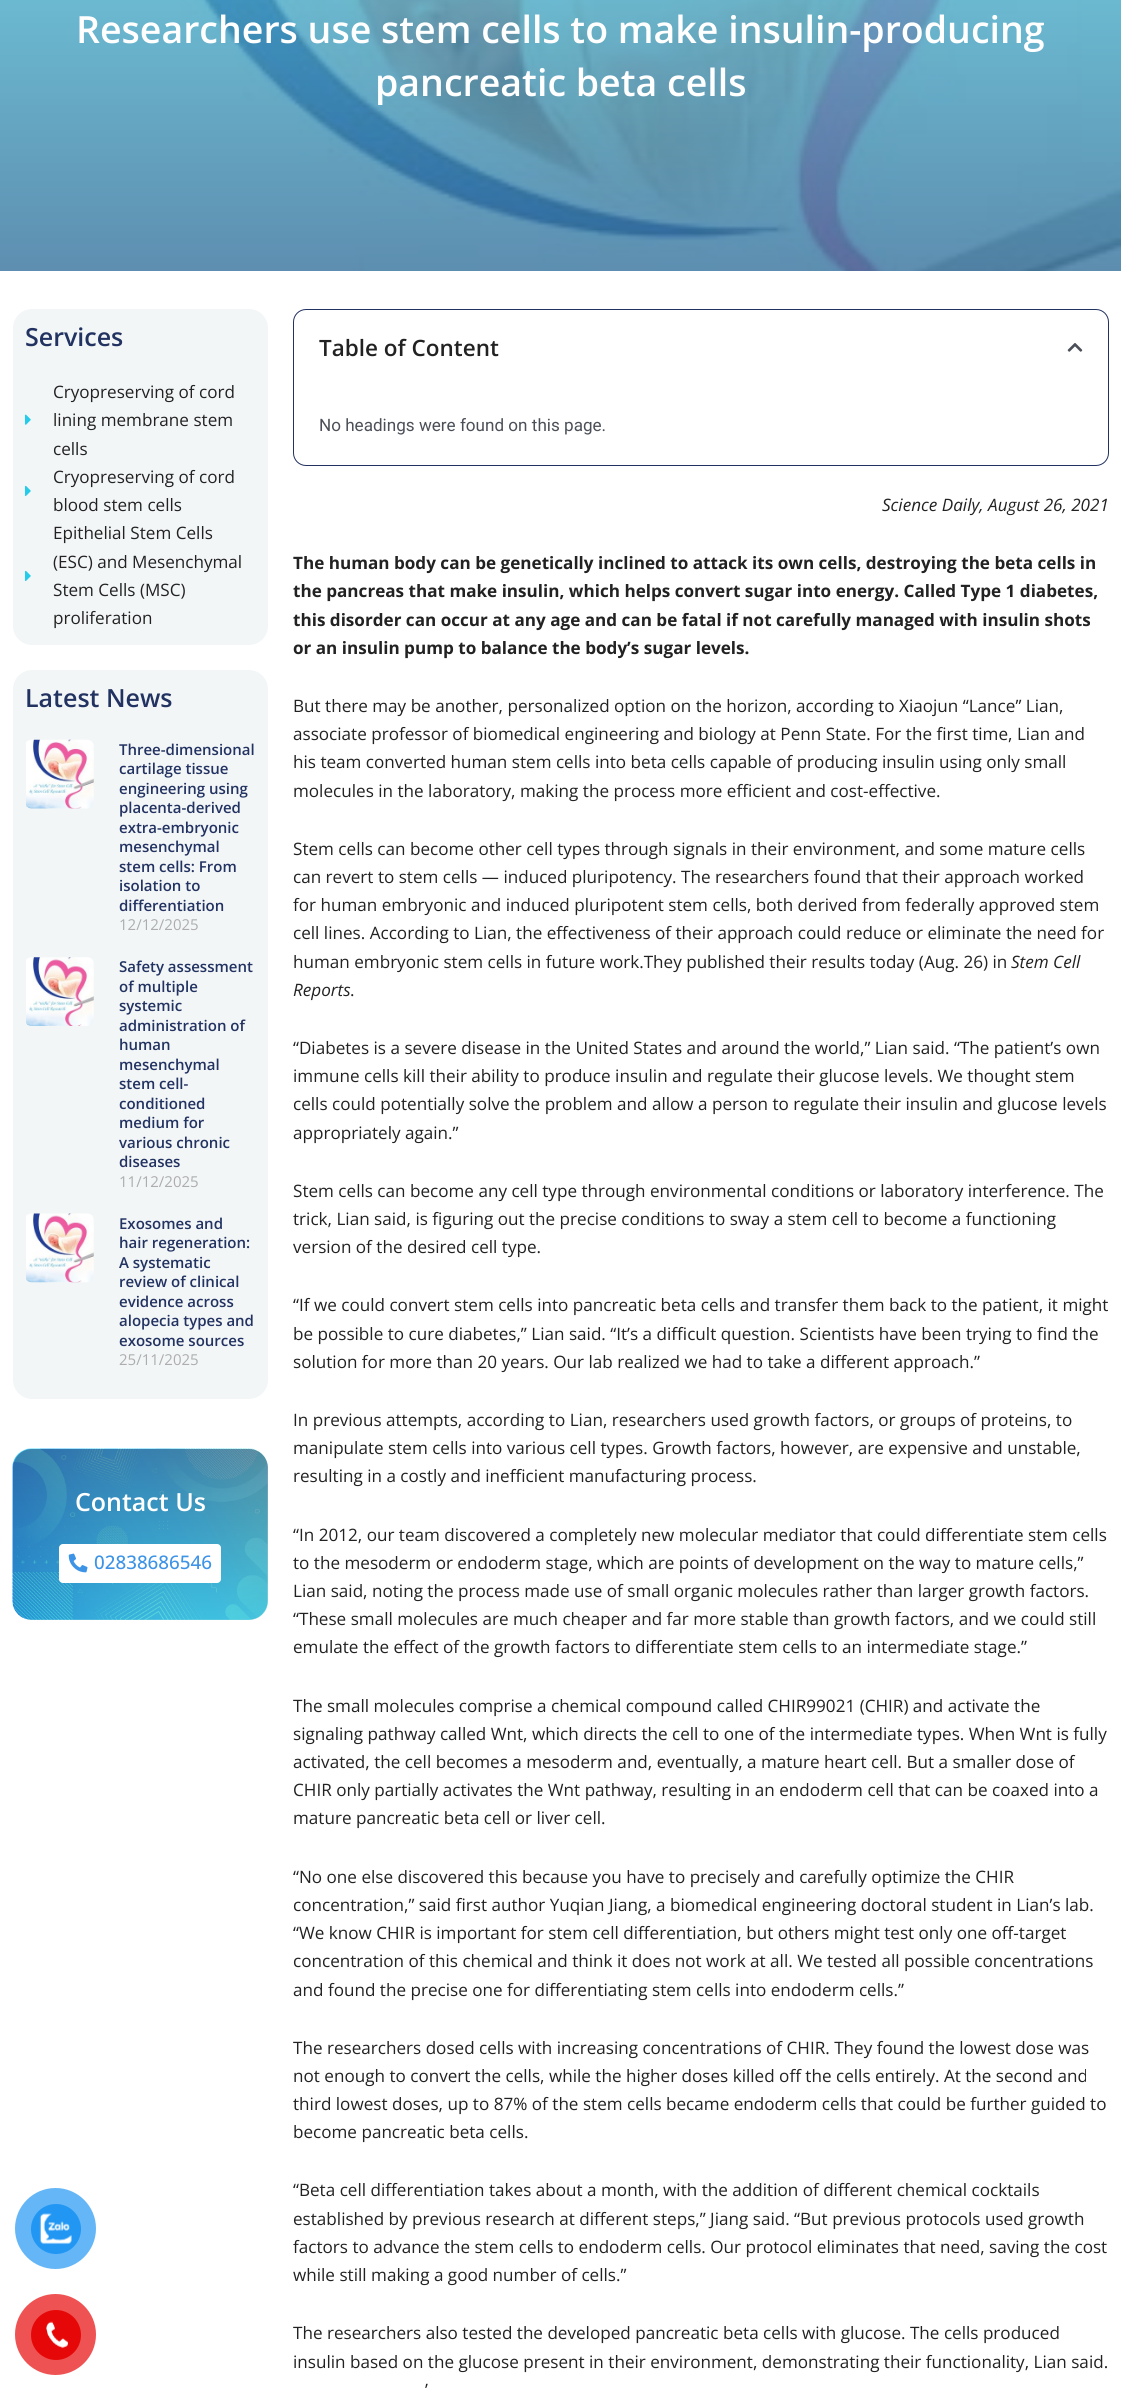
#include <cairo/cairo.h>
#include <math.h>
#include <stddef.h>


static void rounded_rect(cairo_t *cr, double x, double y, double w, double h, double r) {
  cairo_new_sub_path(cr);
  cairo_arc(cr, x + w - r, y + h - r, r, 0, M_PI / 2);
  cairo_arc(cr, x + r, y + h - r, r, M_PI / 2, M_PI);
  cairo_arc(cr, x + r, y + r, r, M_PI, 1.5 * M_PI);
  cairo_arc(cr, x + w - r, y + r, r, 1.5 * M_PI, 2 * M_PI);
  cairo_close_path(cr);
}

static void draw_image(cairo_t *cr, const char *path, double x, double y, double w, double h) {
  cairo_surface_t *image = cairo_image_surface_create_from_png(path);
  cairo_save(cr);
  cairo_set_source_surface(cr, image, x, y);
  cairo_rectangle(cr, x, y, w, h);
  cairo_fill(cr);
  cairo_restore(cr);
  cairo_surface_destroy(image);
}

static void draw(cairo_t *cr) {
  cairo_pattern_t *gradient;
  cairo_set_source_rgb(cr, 1, 1, 1);
  cairo_paint(cr);
  draw_image(cr, "images/1.png", 178, 0, 943, 271);
  gradient = cairo_pattern_create_linear(561, -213, 561, 271);
  cairo_pattern_add_color_stop_rgba(gradient, 0, 84 / 255.0, 210 / 255.0, 229 / 255.0, 0.8);
  cairo_pattern_add_color_stop_rgba(gradient, 1, 53 / 255.0, 114 / 255.0, 157 / 255.0, 0.8);
  cairo_set_source(cr, gradient);
  cairo_pattern_destroy(gradient);
  cairo_rectangle(cr, 0, 0, 1121, 271);
  cairo_fill(cr);
  cairo_set_source_rgb(cr, 243 / 255.0, 246 / 255.0, 247 / 255.0);
  rounded_rect(cr, 13, 309, 255, 336, 19);
  cairo_fill(cr);
  draw_image(cr, "images/2.png", 25, 414, 6, 11);
  draw_image(cr, "images/3.png", 25, 485, 6, 11);
  draw_image(cr, "images/3.png", 25, 570, 6, 11);
  rounded_rect(cr, 13, 670, 255, 729, 19);
  cairo_fill(cr);
  draw_image(cr, "images/4.png", 26, 739, 68, 70);
  draw_image(cr, "images/5.png", 26, 957, 68, 69);
  draw_image(cr, "images/6.png", 26, 1213, 68, 70);
  draw_image(cr, "images/7.png", 12, 1448, 256, 172);
  gradient = cairo_pattern_create_linear(140, 1449, 140, 1620);
  cairo_pattern_add_color_stop_rgba(gradient, 0, 34 / 255.0, 50 / 255.0, 97 / 255.0, 0.5);
  cairo_pattern_add_color_stop_rgba(gradient, 1, 54 / 255.0, 182 / 255.0, 195 / 255.0, 0.5);
  cairo_set_source(cr, gradient);
  cairo_pattern_destroy(gradient);
  rounded_rect(cr, 13, 1449, 255, 171, 19);
  cairo_fill(cr);
  cairo_set_source_rgb(cr, 1, 1, 1);
  rounded_rect(cr, 59, 1544, 162, 39, 4);
  cairo_fill(cr);
  draw_image(cr, "images/8.png", 68, 1553, 20, 20);
  rounded_rect(cr, 293.5, 309.5, 815, 156, 12.5);
  cairo_set_source_rgb(cr, 34 / 255.0, 50 / 255.0, 97 / 255.0);
  cairo_set_line_width(cr, 1);
  cairo_stroke(cr);
  draw_image(cr, "images/9.png", 1067, 343, 16, 9);
  cairo_set_source_rgb(cr, 100 / 255.0, 182 / 255.0, 247 / 255.0);
  cairo_arc(cr, 55.5, 2228.5, 40.5, 0, 2 * M_PI);
  cairo_fill(cr);
  cairo_set_source_rgb(cr, 33 / 255.0, 150 / 255.0, 243 / 255.0);
  cairo_arc(cr, 56, 2229, 25, 0, 2 * M_PI);
  cairo_fill(cr);
  draw_image(cr, "images/10.png", 39, 2213, 33, 32);
  cairo_set_source_rgb(cr, 238 / 255.0, 82 / 255.0, 82 / 255.0);
  cairo_arc(cr, 55.5, 2334.5, 40.5, 0, 2 * M_PI);
  cairo_fill(cr);
  cairo_set_source_rgb(cr, 230 / 255.0, 8 / 255.0, 8 / 255.0);
  cairo_arc(cr, 56, 2335, 25, 0, 2 * M_PI);
  cairo_fill(cr);
  draw_image(cr, "images/11.png", 46, 2321, 22, 27);
  cairo_select_font_face(cr, "Open Sans SemiBold", CAIRO_FONT_SLANT_NORMAL, CAIRO_FONT_WEIGHT_NORMAL);
  cairo_set_font_size(cr, 37.5);
  cairo_set_source_rgb(cr, 1, 1, 1);
  cairo_move_to(cr, 76, 43);
  cairo_show_text(cr, "Researchers use stem cells to make insulin-producing");
  cairo_move_to(cr, 375, 96);
  cairo_show_text(cr, "pancreatic beta cells");
  cairo_set_font_size(cr, 25);
  cairo_set_source_rgb(cr, 34 / 255.0, 50 / 255.0, 97 / 255.0);
  cairo_move_to(cr, 25, 346);
  cairo_show_text(cr, "Services");
  cairo_select_font_face(cr, "Open Sans", CAIRO_FONT_SLANT_NORMAL, CAIRO_FONT_WEIGHT_NORMAL);
  cairo_set_font_size(cr, 17.1);
  cairo_set_source_rgb(cr, 34 / 255.0, 34 / 255.0, 34 / 255.0);
  cairo_move_to(cr, 53, 398);
  cairo_show_text(cr, "Cryopreserving of cord");
  cairo_move_to(cr, 53, 426);
  cairo_show_text(cr, "lining membrane stem");
  cairo_move_to(cr, 53, 455);
  cairo_show_text(cr, "cells");
  cairo_move_to(cr, 53, 483);
  cairo_show_text(cr, "Cryopreserving of cord");
  cairo_move_to(cr, 53, 511);
  cairo_show_text(cr, "blood stem cells");
  cairo_move_to(cr, 53, 539);
  cairo_show_text(cr, "Epithelial Stem Cells");
  cairo_move_to(cr, 53, 568);
  cairo_show_text(cr, "(ESC) and Mesenchymal");
  cairo_move_to(cr, 53, 596);
  cairo_show_text(cr, "Stem Cells (MSC)");
  cairo_move_to(cr, 53, 624);
  cairo_show_text(cr, "proliferation");
  cairo_select_font_face(cr, "Open Sans SemiBold", CAIRO_FONT_SLANT_NORMAL, CAIRO_FONT_WEIGHT_NORMAL);
  cairo_set_font_size(cr, 25);
  cairo_set_source_rgb(cr, 34 / 255.0, 50 / 255.0, 97 / 255.0);
  cairo_move_to(cr, 25, 707);
  cairo_show_text(cr, "Latest News");
  cairo_set_font_size(cr, 15);
  cairo_move_to(cr, 119, 755);
  cairo_show_text(cr, "Three-dimensional");
  cairo_move_to(cr, 119, 774);
  cairo_show_text(cr, "cartilage tissue");
  cairo_move_to(cr, 119, 794);
  cairo_show_text(cr, "engineering using");
  cairo_move_to(cr, 119, 813);
  cairo_show_text(cr, "placenta-derived");
  cairo_move_to(cr, 119, 833);
  cairo_show_text(cr, "extra-embryonic");
  cairo_move_to(cr, 119, 852);
  cairo_show_text(cr, "mesenchymal");
  cairo_move_to(cr, 119, 872);
  cairo_show_text(cr, "stem cells: From");
  cairo_move_to(cr, 119, 891);
  cairo_show_text(cr, "isolation to");
  cairo_move_to(cr, 119, 911);
  cairo_show_text(cr, "differentiation");
  cairo_select_font_face(cr, "Open Sans", CAIRO_FONT_SLANT_NORMAL, CAIRO_FONT_WEIGHT_NORMAL);
  cairo_set_source_rgb(cr, 173 / 255.0, 173 / 255.0, 173 / 255.0);
  cairo_move_to(cr, 119, 930);
  cairo_show_text(cr, "12/12/2025");
  cairo_select_font_face(cr, "Open Sans SemiBold", CAIRO_FONT_SLANT_NORMAL, CAIRO_FONT_WEIGHT_NORMAL);
  cairo_set_source_rgb(cr, 34 / 255.0, 50 / 255.0, 97 / 255.0);
  cairo_move_to(cr, 119, 972);
  cairo_show_text(cr, "Safety assessment");
  cairo_move_to(cr, 119, 992);
  cairo_show_text(cr, "of multiple");
  cairo_move_to(cr, 119, 1011);
  cairo_show_text(cr, "systemic");
  cairo_move_to(cr, 119, 1031);
  cairo_show_text(cr, "administration of");
  cairo_move_to(cr, 119, 1050);
  cairo_show_text(cr, "human");
  cairo_move_to(cr, 119, 1070);
  cairo_show_text(cr, "mesenchymal");
  cairo_move_to(cr, 119, 1089);
  cairo_show_text(cr, "stem cell-");
  cairo_move_to(cr, 119, 1109);
  cairo_show_text(cr, "conditioned");
  cairo_move_to(cr, 119, 1128);
  cairo_show_text(cr, "medium for");
  cairo_move_to(cr, 119, 1148);
  cairo_show_text(cr, "various chronic");
  cairo_move_to(cr, 119, 1167);
  cairo_show_text(cr, "diseases");
  cairo_select_font_face(cr, "Open Sans", CAIRO_FONT_SLANT_NORMAL, CAIRO_FONT_WEIGHT_NORMAL);
  cairo_set_source_rgb(cr, 173 / 255.0, 173 / 255.0, 173 / 255.0);
  cairo_move_to(cr, 119, 1187);
  cairo_show_text(cr, "11/12/2025");
  cairo_select_font_face(cr, "Open Sans SemiBold", CAIRO_FONT_SLANT_NORMAL, CAIRO_FONT_WEIGHT_NORMAL);
  cairo_set_source_rgb(cr, 34 / 255.0, 50 / 255.0, 97 / 255.0);
  cairo_move_to(cr, 119, 1229);
  cairo_show_text(cr, "Exosomes and");
  cairo_move_to(cr, 119, 1248);
  cairo_show_text(cr, "hair regeneration:");
  cairo_move_to(cr, 119, 1268);
  cairo_show_text(cr, "A systematic");
  cairo_move_to(cr, 119, 1287);
  cairo_show_text(cr, "review of clinical");
  cairo_move_to(cr, 119, 1307);
  cairo_show_text(cr, "evidence across");
  cairo_move_to(cr, 119, 1326);
  cairo_show_text(cr, "alopecia types and");
  cairo_move_to(cr, 119, 1346);
  cairo_show_text(cr, "exosome sources");
  cairo_select_font_face(cr, "Open Sans", CAIRO_FONT_SLANT_NORMAL, CAIRO_FONT_WEIGHT_NORMAL);
  cairo_set_source_rgb(cr, 173 / 255.0, 173 / 255.0, 173 / 255.0);
  cairo_move_to(cr, 119, 1365);
  cairo_show_text(cr, "25/11/2025");
  cairo_select_font_face(cr, "Open Sans SemiBold", CAIRO_FONT_SLANT_NORMAL, CAIRO_FONT_WEIGHT_NORMAL);
  cairo_set_font_size(cr, 25);
  cairo_set_source_rgb(cr, 1, 1, 1);
  cairo_move_to(cr, 75, 1511);
  cairo_show_text(cr, "Contact Us");
  cairo_select_font_face(cr, "Open Sans Medium", CAIRO_FONT_SLANT_NORMAL, CAIRO_FONT_WEIGHT_NORMAL);
  cairo_set_font_size(cr, 18.75);
  cairo_set_source_rgb(cr, 61 / 255.0, 147 / 255.0, 230 / 255.0);
  cairo_move_to(cr, 94, 1569);
  cairo_show_text(cr, "02838686546");
  cairo_select_font_face(cr, "Open Sans SemiBold", CAIRO_FONT_SLANT_NORMAL, CAIRO_FONT_WEIGHT_NORMAL);
  cairo_set_font_size(cr, 22.5);
  cairo_set_source_rgb(cr, 34 / 255.0, 34 / 255.0, 34 / 255.0);
  cairo_move_to(cr, 319, 356);
  cairo_show_text(cr, "Table of Content");
  cairo_select_font_face(cr, "Roboto", CAIRO_FONT_SLANT_NORMAL, CAIRO_FONT_WEIGHT_NORMAL);
  cairo_set_font_size(cr, 17.1);
  cairo_set_source_rgb(cr, 75 / 255.0, 79 / 255.0, 88 / 255.0);
  cairo_move_to(cr, 319, 431);
  cairo_show_text(cr, "No headings were found on this page.");
  cairo_select_font_face(cr, "Open Sans", CAIRO_FONT_SLANT_ITALIC, CAIRO_FONT_WEIGHT_NORMAL);
  cairo_set_source_rgb(cr, 34 / 255.0, 34 / 255.0, 34 / 255.0);
  cairo_move_to(cr, 882, 511);
  cairo_show_text(cr, "Science Daily, August 26, 2021");
  cairo_select_font_face(cr, "Open Sans", CAIRO_FONT_SLANT_NORMAL, CAIRO_FONT_WEIGHT_BOLD);
  cairo_move_to(cr, 293, 569);
  cairo_show_text(cr, "The human body can be genetically inclined to attack its own cells, destroying the beta cells in");
  cairo_move_to(cr, 293, 597);
  cairo_show_text(cr, "the pancreas that make insulin, which helps convert sugar into energy. Called Type 1 diabetes,");
  cairo_move_to(cr, 293, 626);
  cairo_show_text(cr, "this disorder can occur at any age and can be fatal if not carefully managed with insulin shots");
  cairo_move_to(cr, 293, 654);
  cairo_show_text(cr, "or an insulin pump to balance the body’s sugar levels.");
  cairo_select_font_face(cr, "Open Sans", CAIRO_FONT_SLANT_NORMAL, CAIRO_FONT_WEIGHT_NORMAL);
  cairo_move_to(cr, 293, 712);
  cairo_show_text(cr, "But there may be another, personalized option on the horizon, according to Xiaojun “Lance” Lian,");
  cairo_move_to(cr, 293, 740);
  cairo_show_text(cr, "associate professor of biomedical engineering and biology at Penn State. For the first time, Lian and");
  cairo_move_to(cr, 293, 768);
  cairo_show_text(cr, "his team converted human stem cells into beta cells capable of producing insulin using only small");
  cairo_move_to(cr, 293, 797);
  cairo_show_text(cr, "molecules in the laboratory, making the process more efficient and cost-effective.");
  cairo_move_to(cr, 293, 855);
  cairo_show_text(cr, "Stem cells can become other cell types through signals in their environment, and some mature cells");
  cairo_move_to(cr, 293, 883);
  cairo_show_text(cr, "can revert to stem cells — induced pluripotency. The researchers found that their approach worked");
  cairo_move_to(cr, 293, 911);
  cairo_show_text(cr, "for human embryonic and induced pluripotent stem cells, both derived from federally approved stem");
  cairo_move_to(cr, 293, 939);
  cairo_show_text(cr, "cell lines. According to Lian, the effectiveness of their approach could reduce or eliminate the need for");
  cairo_move_to(cr, 293, 968);
  cairo_show_text(cr, "human embryonic stem cells in future work.They published their results today (Aug. 26) in");
  cairo_select_font_face(cr, "Open Sans", CAIRO_FONT_SLANT_ITALIC, CAIRO_FONT_WEIGHT_NORMAL);
  cairo_move_to(cr, 1011, 968);
  cairo_show_text(cr, "Stem Cell");
  cairo_move_to(cr, 293, 996);
  cairo_show_text(cr, "Reports");
  cairo_select_font_face(cr, "Open Sans", CAIRO_FONT_SLANT_NORMAL, CAIRO_FONT_WEIGHT_NORMAL);
  cairo_move_to(cr, 350, 996);
  cairo_show_text(cr, ".");
  cairo_move_to(cr, 293, 1054);
  cairo_show_text(cr, "“Diabetes is a severe disease in the United States and around the world,” Lian said. “The patient’s own");
  cairo_move_to(cr, 293, 1082);
  cairo_show_text(cr, "immune cells kill their ability to produce insulin and regulate their glucose levels. We thought stem");
  cairo_move_to(cr, 293, 1110);
  cairo_show_text(cr, "cells could potentially solve the problem and allow a person to regulate their insulin and glucose levels");
  cairo_move_to(cr, 293, 1139);
  cairo_show_text(cr, "appropriately again.”");
  cairo_move_to(cr, 293, 1197);
  cairo_show_text(cr, "Stem cells can become any cell type through environmental conditions or laboratory interference. The");
  cairo_move_to(cr, 293, 1225);
  cairo_show_text(cr, "trick, Lian said, is figuring out the precise conditions to sway a stem cell to become a functioning");
  cairo_move_to(cr, 293, 1253);
  cairo_show_text(cr, "version of the desired cell type.");
  cairo_move_to(cr, 293, 1311);
  cairo_show_text(cr, "“If we could convert stem cells into pancreatic beta cells and transfer them back to the patient, it might");
  cairo_move_to(cr, 293, 1340);
  cairo_show_text(cr, "be possible to cure diabetes,” Lian said. “It’s a difficult question. Scientists have been trying to find the");
  cairo_move_to(cr, 293, 1368);
  cairo_show_text(cr, "solution for more than 20 years. Our lab realized we had to take a different approach.”");
  cairo_move_to(cr, 293, 1426);
  cairo_show_text(cr, "In previous attempts, according to Lian, researchers used growth factors, or groups of proteins, to");
  cairo_move_to(cr, 293, 1454);
  cairo_show_text(cr, "manipulate stem cells into various cell types. Growth factors, however, are expensive and unstable,");
  cairo_move_to(cr, 293, 1482);
  cairo_show_text(cr, "resulting in a costly and inefficient manufacturing process.");
  cairo_move_to(cr, 293, 1541);
  cairo_show_text(cr, "“In 2012, our team discovered a completely new molecular mediator that could differentiate stem cells");
  cairo_move_to(cr, 293, 1569);
  cairo_show_text(cr, "to the mesoderm or endoderm stage, which are points of development on the way to mature cells,”");
  cairo_move_to(cr, 293, 1597);
  cairo_show_text(cr, "Lian said, noting the process made use of small organic molecules rather than larger growth factors.");
  cairo_move_to(cr, 293, 1625);
  cairo_show_text(cr, "“These small molecules are much cheaper and far more stable than growth factors, and we could still");
  cairo_move_to(cr, 293, 1653);
  cairo_show_text(cr, "emulate the effect of the growth factors to differentiate stem cells to an intermediate stage.”");
  cairo_move_to(cr, 293, 1712);
  cairo_show_text(cr, "The small molecules comprise a chemical compound called CHIR99021 (CHIR) and activate the");
  cairo_move_to(cr, 293, 1740);
  cairo_show_text(cr, "signaling pathway called Wnt, which directs the cell to one of the intermediate types. When Wnt is fully");
  cairo_move_to(cr, 293, 1768);
  cairo_show_text(cr, "activated, the cell becomes a mesoderm and, eventually, a mature heart cell. But a smaller dose of");
  cairo_move_to(cr, 293, 1796);
  cairo_show_text(cr, "CHIR only partially activates the Wnt pathway, resulting in an endoderm cell that can be coaxed into a");
  cairo_move_to(cr, 293, 1824);
  cairo_show_text(cr, "mature pancreatic beta cell or liver cell.");
  cairo_move_to(cr, 293, 1883);
  cairo_show_text(cr, "“No one else discovered this because you have to precisely and carefully optimize the CHIR");
  cairo_move_to(cr, 293, 1911);
  cairo_show_text(cr, "concentration,” said first author Yuqian Jiang, a biomedical engineering doctoral student in Lian’s lab.");
  cairo_move_to(cr, 293, 1939);
  cairo_show_text(cr, "“We know CHIR is important for stem cell differentiation, but others might test only one off-target");
  cairo_move_to(cr, 293, 1967);
  cairo_show_text(cr, "concentration of this chemical and think it does not work at all. We tested all possible concentrations");
  cairo_move_to(cr, 293, 1996);
  cairo_show_text(cr, "and found the precise one for differentiating stem cells into endoderm cells.”");
  cairo_move_to(cr, 293, 2054);
  cairo_show_text(cr, "The researchers dosed cells with increasing concentrations of CHIR. They found the lowest dose was");
  cairo_move_to(cr, 293, 2082);
  cairo_show_text(cr, "not enough to convert the cells, while the higher doses killed off the cells entirely. At the second and");
  cairo_move_to(cr, 293, 2110);
  cairo_show_text(cr, "third lowest doses, up to 87% of the stem cells became endoderm cells that could be further guided to");
  cairo_move_to(cr, 293, 2138);
  cairo_show_text(cr, "become pancreatic beta cells.");
  cairo_move_to(cr, 293, 2196);
  cairo_show_text(cr, "“Beta cell differentiation takes about a month, with the addition of different chemical cocktails");
  cairo_move_to(cr, 293, 2225);
  cairo_show_text(cr, "established by previous research at different steps,” Jiang said. “But previous protocols used growth");
  cairo_move_to(cr, 293, 2253);
  cairo_show_text(cr, "factors to advance the stem cells to endoderm cells. Our protocol eliminates that need, saving the cost");
  cairo_move_to(cr, 293, 2281);
  cairo_show_text(cr, "while still making a good number of cells.”");
  cairo_move_to(cr, 293, 2339);
  cairo_show_text(cr, "The researchers also tested the developed pancreatic beta cells with glucose. The cells produced");
  cairo_move_to(cr, 293, 2368);
  cairo_show_text(cr, "insulin based on the glucose present in their environment, demonstrating their functionality, Lian said.");
  cairo_move_to(cr, 425, 2396);
  cairo_show_text(cr, "’");
}

int main(void) {
  cairo_surface_t *surface = cairo_image_surface_create(CAIRO_FORMAT_RGB24, 1121, 2391);
  cairo_t *cr = cairo_create(surface);
  cairo_font_options_t *options = cairo_font_options_create();
  cairo_font_options_set_hint_metrics(options, CAIRO_HINT_METRICS_OFF);
  cairo_font_options_set_hint_style(options, CAIRO_HINT_STYLE_NONE);
  cairo_set_font_options(cr, options);
  cairo_set_miter_limit(cr, 4);
  draw(cr);
  cairo_surface_write_to_png(surface, "out.png");
  cairo_font_options_destroy(options);
  cairo_destroy(cr);
  cairo_surface_destroy(surface);
  return 0;
}
